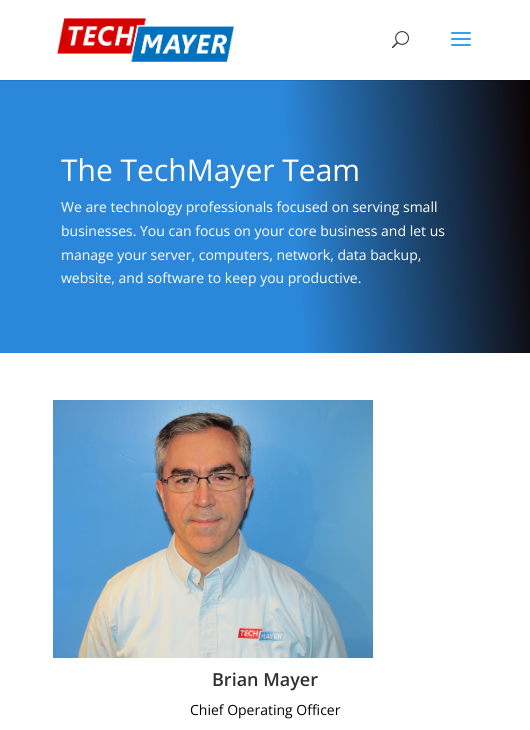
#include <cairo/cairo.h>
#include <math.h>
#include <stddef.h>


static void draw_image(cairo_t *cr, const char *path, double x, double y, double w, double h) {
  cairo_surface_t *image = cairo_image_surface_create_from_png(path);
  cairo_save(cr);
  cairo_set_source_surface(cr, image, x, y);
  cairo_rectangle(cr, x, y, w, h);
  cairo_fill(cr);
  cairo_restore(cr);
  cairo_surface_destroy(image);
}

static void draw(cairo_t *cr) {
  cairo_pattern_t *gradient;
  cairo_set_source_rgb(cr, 1, 1, 1);
  cairo_paint(cr);
  draw_image(cr, "images/1.png", 57, 18, 177, 44);
  draw_image(cr, "images/2.png", 392, 31, 17, 18);
  draw_image(cr, "images/3.png", 451, 32, 20, 14);
  gradient = cairo_pattern_create_linear(-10, 240, 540, 191);
  cairo_pattern_add_color_stop_rgba(gradient, 0.55, 43 / 255.0, 135 / 255.0, 218 / 255.0, 1);
  cairo_pattern_add_color_stop_rgba(gradient, 1, 12 / 255.0, 2 / 255.0, 2 / 255.0, 1);
  cairo_set_source(cr, gradient);
  cairo_pattern_destroy(gradient);
  cairo_rectangle(cr, 0, 81, 530, 272);
  cairo_fill(cr);
  gradient = cairo_pattern_create_linear(-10, 240, 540, 191);
  cairo_pattern_add_color_stop_rgba(gradient, 0.55, 39 / 255.0, 122 / 255.0, 196 / 255.0, 1);
  cairo_pattern_add_color_stop_rgba(gradient, 1, 11 / 255.0, 2 / 255.0, 2 / 255.0, 1);
  cairo_set_source(cr, gradient);
  cairo_pattern_destroy(gradient);
  cairo_rectangle(cr, 0, 80, 530, 1);
  cairo_fill(cr);
  draw_image(cr, "images/4.png", 53, 400, 320, 258);
  cairo_select_font_face(cr, "Open Sans", CAIRO_FONT_SLANT_NORMAL, CAIRO_FONT_WEIGHT_NORMAL);
  cairo_set_font_size(cr, 30);
  cairo_set_source_rgb(cr, 1, 1, 1);
  cairo_move_to(cr, 61, 181);
  cairo_show_text(cr, "The TechMayer Team");
  cairo_set_font_size(cr, 14);
  cairo_move_to(cr, 61, 212);
  cairo_show_text(cr, "We are technology professionals focused on serving small");
  cairo_move_to(cr, 61, 236);
  cairo_show_text(cr, "businesses. You can focus on your core business and let us");
  cairo_move_to(cr, 61, 260);
  cairo_show_text(cr, "manage your server, computers, network, data backup,");
  cairo_move_to(cr, 61, 283);
  cairo_show_text(cr, "website, and software to keep you productive.");
  cairo_select_font_face(cr, "Open Sans SemiBold", CAIRO_FONT_SLANT_NORMAL, CAIRO_FONT_WEIGHT_NORMAL);
  cairo_set_font_size(cr, 18);
  cairo_set_source_rgb(cr, 48 / 255.0, 48 / 255.0, 48 / 255.0);
  cairo_move_to(cr, 212, 686);
  cairo_show_text(cr, "Brian Mayer");
  cairo_select_font_face(cr, "Open Sans", CAIRO_FONT_SLANT_NORMAL, CAIRO_FONT_WEIGHT_NORMAL);
  cairo_set_font_size(cr, 14);
  cairo_set_source_rgb(cr, 0, 0, 0);
  cairo_move_to(cr, 190, 715);
  cairo_show_text(cr, "Chief Operating Officer");
}

int main(void) {
  cairo_surface_t *surface = cairo_image_surface_create(CAIRO_FORMAT_RGB24, 530, 730);
  cairo_t *cr = cairo_create(surface);
  cairo_font_options_t *options = cairo_font_options_create();
  cairo_font_options_set_hint_metrics(options, CAIRO_HINT_METRICS_OFF);
  cairo_font_options_set_hint_style(options, CAIRO_HINT_STYLE_NONE);
  cairo_set_font_options(cr, options);
  cairo_set_miter_limit(cr, 4);
  draw(cr);
  cairo_surface_write_to_png(surface, "out.png");
  cairo_font_options_destroy(options);
  cairo_destroy(cr);
  cairo_surface_destroy(surface);
  return 0;
}
